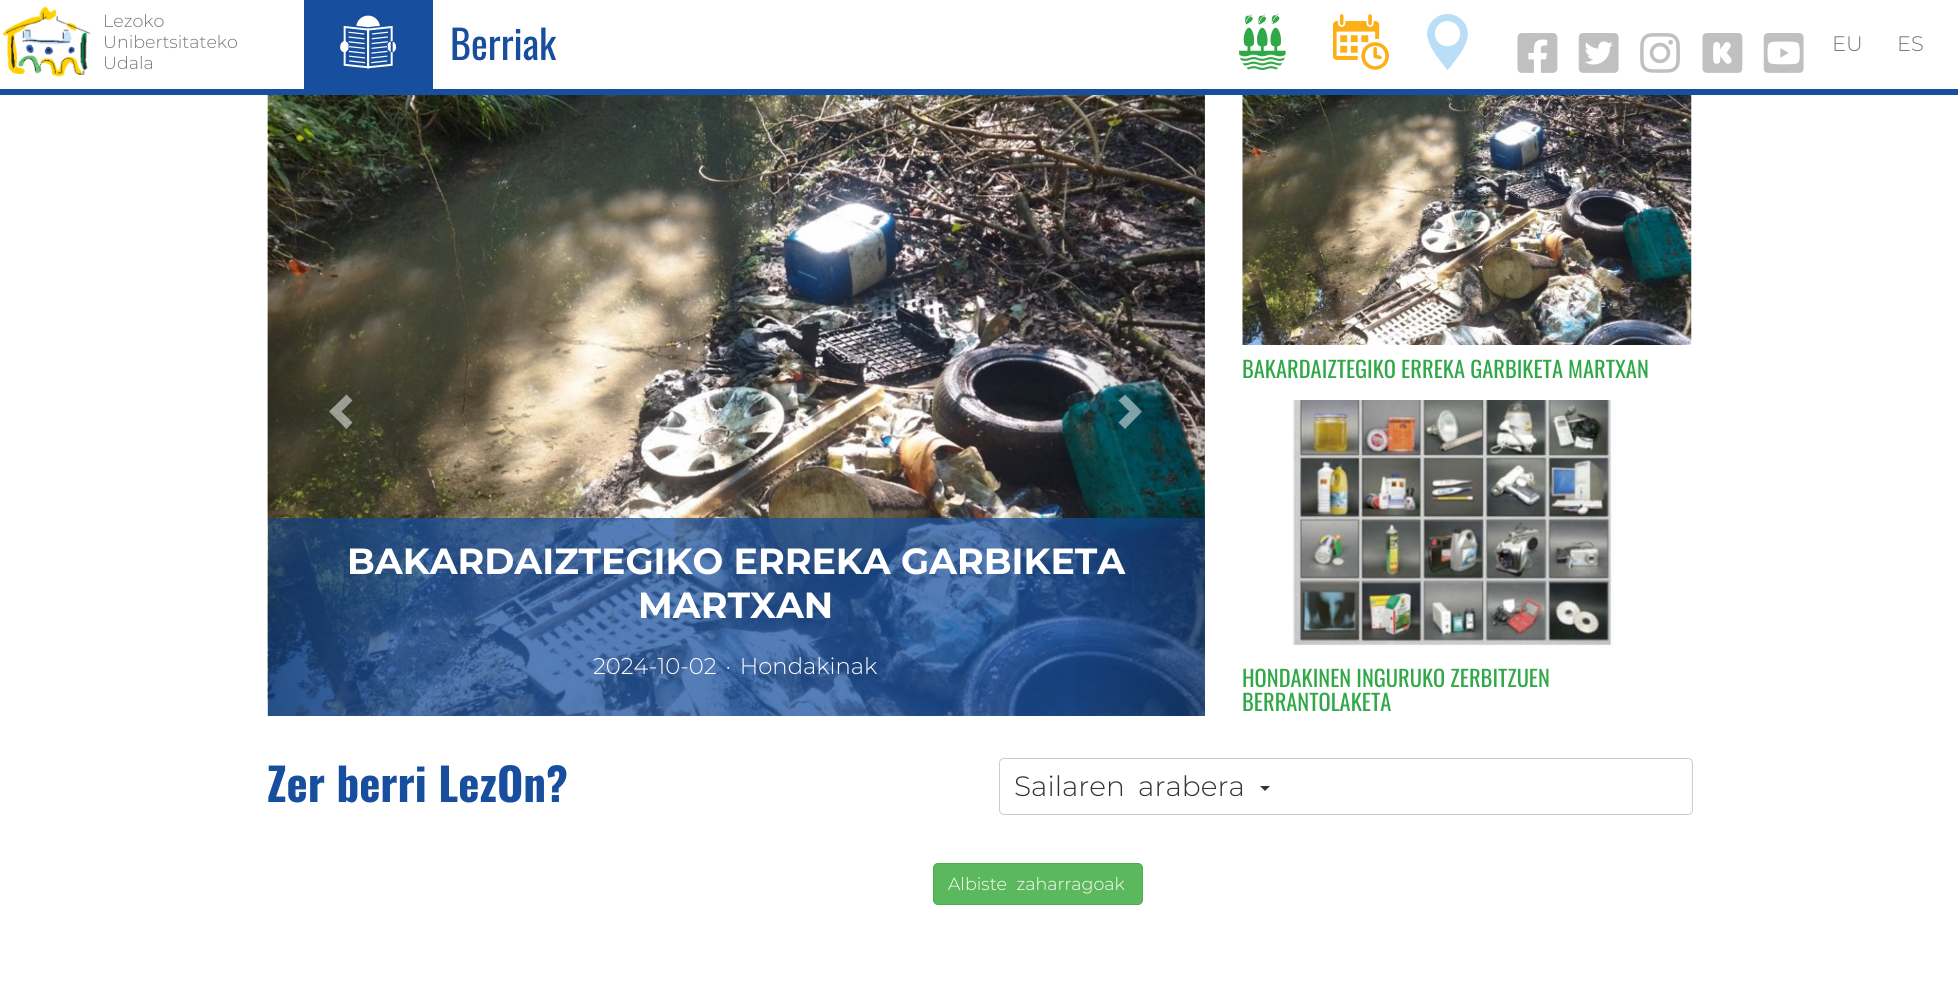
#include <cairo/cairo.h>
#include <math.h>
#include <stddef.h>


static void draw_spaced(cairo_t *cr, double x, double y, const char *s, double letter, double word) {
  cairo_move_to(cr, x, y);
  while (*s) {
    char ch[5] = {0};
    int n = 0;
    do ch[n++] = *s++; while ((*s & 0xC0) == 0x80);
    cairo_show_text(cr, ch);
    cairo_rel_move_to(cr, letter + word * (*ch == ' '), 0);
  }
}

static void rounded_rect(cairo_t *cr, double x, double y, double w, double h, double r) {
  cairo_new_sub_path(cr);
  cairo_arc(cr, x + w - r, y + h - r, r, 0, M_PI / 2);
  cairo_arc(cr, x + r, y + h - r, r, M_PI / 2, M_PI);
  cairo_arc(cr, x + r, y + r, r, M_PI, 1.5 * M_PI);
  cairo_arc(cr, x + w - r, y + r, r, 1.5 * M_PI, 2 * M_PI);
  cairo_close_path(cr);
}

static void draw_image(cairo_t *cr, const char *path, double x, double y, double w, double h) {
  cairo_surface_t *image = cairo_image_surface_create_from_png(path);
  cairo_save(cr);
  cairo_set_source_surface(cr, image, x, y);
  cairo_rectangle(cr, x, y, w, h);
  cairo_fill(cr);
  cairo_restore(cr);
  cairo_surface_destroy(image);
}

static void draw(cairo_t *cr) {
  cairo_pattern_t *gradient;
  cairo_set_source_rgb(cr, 1, 1, 1);
  cairo_paint(cr);
  cairo_set_source_rgb(cr, 23 / 255.0, 79 / 255.0, 158 / 255.0);
  cairo_rectangle(cr, 0, 89, 1958, 6);
  cairo_fill(cr);
  draw_image(cr, "images/1.png", 3, 6, 88, 71);
  cairo_rectangle(cr, 304, 0, 129, 89);
  cairo_fill(cr);
  draw_image(cr, "images/2.png", 1517, 33, 41, 40);
  draw_image(cr, "images/3.png", 1578, 33, 41, 40);
  draw_image(cr, "images/4.png", 1640, 33, 40, 40);
  draw_image(cr, "images/5.png", 1702, 33, 41, 40);
  draw_image(cr, "images/6.png", 1763, 33, 41, 40);
  draw_image(cr, "images/7.png", 267, 95, 938, 621);
  cairo_set_source_rgba(cr, 23 / 255.0, 79 / 255.0, 158 / 255.0, 0.73);
  cairo_rectangle(cr, 268, 518, 937, 198);
  cairo_fill(cr);
  gradient = cairo_pattern_create_linear(268, 404, 408, 404);
  cairo_pattern_add_color_stop_rgba(gradient, 0, 0, 0, 0, 0.25);
  cairo_pattern_add_color_stop_rgba(gradient, 1, 0, 0, 0, 0);
  cairo_set_source(cr, gradient);
  cairo_pattern_destroy(gradient);
  cairo_rectangle(cr, 268, 95, 128, 621);
  cairo_fill(cr);
  cairo_set_source_rgba(cr, 1, 1, 1, 0.5);
  cairo_new_path(cr);
  cairo_move_to(cr, 352.5, 400.5);
  cairo_line_to(cr, 341.5, 411.5);
  cairo_line_to(cr, 352.5, 422.5);
  cairo_line_to(cr, 346.5, 429);
  cairo_line_to(cr, 329, 411.5);
  cairo_line_to(cr, 346.5, 394.5);
  cairo_close_path(cr);
  cairo_fill(cr);
  gradient = cairo_pattern_create_linear(1064, 404, 1205, 404);
  cairo_pattern_add_color_stop_rgba(gradient, 0, 0, 0, 0, 0);
  cairo_pattern_add_color_stop_rgba(gradient, 1, 0, 0, 0, 0.25);
  cairo_set_source(cr, gradient);
  cairo_pattern_destroy(gradient);
  cairo_rectangle(cr, 1076, 95, 129, 621);
  cairo_fill(cr);
  cairo_set_source_rgba(cr, 1, 1, 1, 0.5);
  cairo_new_path(cr);
  cairo_move_to(cr, 1142, 411.5);
  cairo_line_to(cr, 1125, 429);
  cairo_line_to(cr, 1118.5, 422.5);
  cairo_line_to(cr, 1129.5, 411.5);
  cairo_line_to(cr, 1118.5, 400.5);
  cairo_line_to(cr, 1125, 394.5);
  cairo_close_path(cr);
  cairo_fill(cr);
  draw_image(cr, "images/8.png", 1242, 95, 450, 250);
  draw_image(cr, "images/9.png", 1292, 400, 321, 247);
  rounded_rect(cr, 999.5, 758.5, 693, 56, 4.5);
  cairo_set_source_rgb(cr, 204 / 255.0, 204 / 255.0, 204 / 255.0);
  cairo_set_line_width(cr, 1);
  cairo_stroke(cr);
  cairo_set_source_rgb(cr, 51 / 255.0, 51 / 255.0, 51 / 255.0);
  cairo_new_path(cr);
  cairo_move_to(cr, 1260, 786);
  cairo_line_to(cr, 1270, 786);
  cairo_line_to(cr, 1265, 791);
  cairo_close_path(cr);
  cairo_fill(cr);
  cairo_set_source_rgb(cr, 92 / 255.0, 184 / 255.0, 92 / 255.0);
  rounded_rect(cr, 933.5, 863.5, 209, 41, 4.5);
  cairo_fill_preserve(cr);
  cairo_set_source_rgb(cr, 76 / 255.0, 174 / 255.0, 76 / 255.0);
  cairo_stroke(cr);
  cairo_select_font_face(cr, "Montserrat Light", CAIRO_FONT_SLANT_NORMAL, CAIRO_FONT_WEIGHT_NORMAL);
  cairo_set_font_size(cr, 17.5);
  cairo_set_source_rgb(cr, 119 / 255.0, 119 / 255.0, 119 / 255.0);
  cairo_move_to(cr, 103, 27);
  cairo_show_text(cr, "Lezoko");
  cairo_move_to(cr, 103, 48);
  cairo_show_text(cr, "Unibertsitateko");
  cairo_move_to(cr, 103, 69);
  cairo_show_text(cr, "Udala");
  cairo_select_font_face(cr, "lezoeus", CAIRO_FONT_SLANT_NORMAL, CAIRO_FONT_WEIGHT_NORMAL);
  cairo_set_font_size(cr, 56);
  cairo_set_source_rgb(cr, 1, 1, 1);
  cairo_move_to(cr, 340, 70);
  cairo_show_text(cr, "T");
  cairo_select_font_face(cr, "Oswald", CAIRO_FONT_SLANT_NORMAL, CAIRO_FONT_WEIGHT_NORMAL);
  cairo_set_font_size(cr, 40);
  cairo_set_source_rgb(cr, 23 / 255.0, 79 / 255.0, 158 / 255.0);
  cairo_move_to(cr, 450, 60);
  cairo_show_text(cr, "Berriak");
  cairo_select_font_face(cr, "lezoeus", CAIRO_FONT_SLANT_NORMAL, CAIRO_FONT_WEIGHT_NORMAL);
  cairo_set_font_size(cr, 56);
  cairo_set_source_rgb(cr, 48 / 255.0, 168 / 255.0, 71 / 255.0);
  cairo_move_to(cr, 1239, 70);
  cairo_show_text(cr, "I");
  cairo_set_source_rgb(cr, 252 / 255.0, 175 / 255.0, 23 / 255.0);
  cairo_move_to(cr, 1333, 70);
  cairo_show_text(cr, "D");
  cairo_set_source_rgb(cr, 186 / 255.0, 222 / 255.0, 247 / 255.0);
  cairo_move_to(cr, 1427, 70);
  cairo_show_text(cr, "O");
  cairo_select_font_face(cr, "Montserrat Light", CAIRO_FONT_SLANT_NORMAL, CAIRO_FONT_WEIGHT_NORMAL);
  cairo_set_font_size(cr, 21);
  cairo_set_source_rgb(cr, 119 / 255.0, 119 / 255.0, 119 / 255.0);
  cairo_move_to(cr, 1832, 51);
  cairo_show_text(cr, "EU");
  cairo_move_to(cr, 1897, 51);
  cairo_show_text(cr, "ES");
  cairo_select_font_face(cr, "Montserrat", CAIRO_FONT_SLANT_NORMAL, CAIRO_FONT_WEIGHT_BOLD);
  cairo_set_font_size(cr, 36.4);
  cairo_set_source_rgb(cr, 1, 1, 1);
  cairo_move_to(cr, 347, 574);
  cairo_show_text(cr, "BAKARDAIZTEGIKO ERREKA GARBIKETA");
  cairo_move_to(cr, 638, 618);
  cairo_show_text(cr, "MARTXAN");
  cairo_select_font_face(cr, "Montserrat Light", CAIRO_FONT_SLANT_NORMAL, CAIRO_FONT_WEIGHT_NORMAL);
  cairo_set_font_size(cr, 22.75);
  draw_spaced(cr, 593, 674, "2024-10-02 · Hondakinak", 0, 3);
  cairo_select_font_face(cr, "Oswald", CAIRO_FONT_SLANT_NORMAL, CAIRO_FONT_WEIGHT_NORMAL);
  cairo_set_font_size(cr, 22.5);
  cairo_set_source_rgb(cr, 48 / 255.0, 168 / 255.0, 71 / 255.0);
  cairo_move_to(cr, 1242, 378);
  cairo_show_text(cr, "BAKARDAIZTEGIKO ERREKA GARBIKETA MARTXAN");
  cairo_move_to(cr, 1242, 687);
  cairo_show_text(cr, "HONDAKINEN INGURUKO ZERBITZUEN");
  cairo_move_to(cr, 1242, 711);
  cairo_show_text(cr, "BERRANTOLAKETA");
  cairo_select_font_face(cr, "Oswald", CAIRO_FONT_SLANT_NORMAL, CAIRO_FONT_WEIGHT_BOLD);
  cairo_set_font_size(cr, 45);
  cairo_set_source_rgb(cr, 23 / 255.0, 79 / 255.0, 158 / 255.0);
  cairo_move_to(cr, 267, 802);
  cairo_show_text(cr, "Zer berri LezOn?");
  cairo_select_font_face(cr, "Montserrat Light", CAIRO_FONT_SLANT_NORMAL, CAIRO_FONT_WEIGHT_NORMAL);
  cairo_set_font_size(cr, 28);
  cairo_set_source_rgb(cr, 51 / 255.0, 51 / 255.0, 51 / 255.0);
  draw_spaced(cr, 1014, 796, "Sailaren arabera", 0, 6);
  cairo_set_font_size(cr, 17.5);
  cairo_set_source_rgb(cr, 1, 1, 1);
  draw_spaced(cr, 948, 890, "Albiste zaharragoak", 0, 5);
}

int main(void) {
  cairo_surface_t *surface = cairo_image_surface_create(CAIRO_FORMAT_RGB24, 1958, 990);
  cairo_t *cr = cairo_create(surface);
  cairo_font_options_t *options = cairo_font_options_create();
  cairo_font_options_set_hint_metrics(options, CAIRO_HINT_METRICS_OFF);
  cairo_font_options_set_hint_style(options, CAIRO_HINT_STYLE_NONE);
  cairo_set_font_options(cr, options);
  cairo_set_miter_limit(cr, 4);
  draw(cr);
  cairo_surface_write_to_png(surface, "out.png");
  cairo_font_options_destroy(options);
  cairo_destroy(cr);
  cairo_surface_destroy(surface);
  return 0;
}
